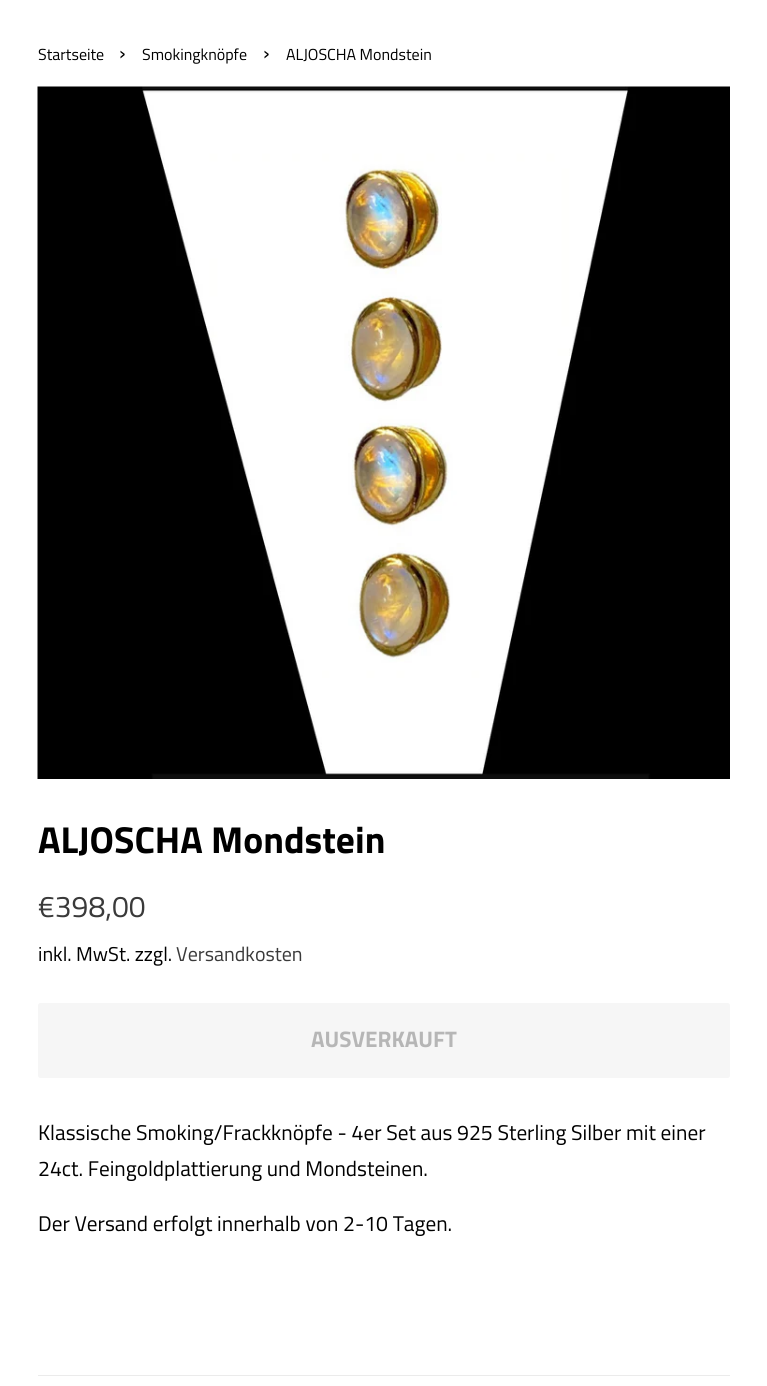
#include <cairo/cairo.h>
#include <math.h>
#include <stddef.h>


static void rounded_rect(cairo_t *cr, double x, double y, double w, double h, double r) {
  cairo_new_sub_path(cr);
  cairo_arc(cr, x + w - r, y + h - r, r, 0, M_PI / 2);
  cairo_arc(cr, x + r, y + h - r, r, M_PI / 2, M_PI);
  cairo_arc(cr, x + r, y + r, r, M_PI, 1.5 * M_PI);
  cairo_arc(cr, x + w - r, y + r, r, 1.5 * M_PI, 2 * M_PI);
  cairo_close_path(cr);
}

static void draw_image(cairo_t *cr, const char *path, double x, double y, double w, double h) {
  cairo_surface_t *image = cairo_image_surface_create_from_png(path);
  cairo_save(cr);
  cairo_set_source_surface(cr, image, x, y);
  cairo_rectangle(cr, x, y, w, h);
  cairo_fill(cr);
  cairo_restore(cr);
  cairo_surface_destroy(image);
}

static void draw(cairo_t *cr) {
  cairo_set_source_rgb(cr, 1, 1, 1);
  cairo_paint(cr);
  draw_image(cr, "images/1.png", 37, 86, 693, 693);
  cairo_set_source_rgb(cr, 246 / 255.0, 246 / 255.0, 246 / 255.0);
  rounded_rect(cr, 38, 1003, 692, 75, 2.5);
  cairo_fill(cr);
  cairo_set_source_rgb(cr, 235 / 255.0, 235 / 255.0, 235 / 255.0);
  cairo_rectangle(cr, 38, 1375, 692, 1);
  cairo_fill(cr);
  cairo_select_font_face(cr, "Titillium Web", CAIRO_FONT_SLANT_NORMAL, CAIRO_FONT_WEIGHT_NORMAL);
  cairo_set_font_size(cr, 16);
  cairo_set_source_rgb(cr, 0, 0, 0);
  cairo_move_to(cr, 38, 60);
  cairo_show_text(cr, "Startseite");
  cairo_set_font_size(cr, 22);
  cairo_move_to(cr, 119, 60);
  cairo_show_text(cr, "›");
  cairo_set_font_size(cr, 16);
  cairo_move_to(cr, 142, 60);
  cairo_show_text(cr, "Smokingknöpfe");
  cairo_set_font_size(cr, 22);
  cairo_move_to(cr, 263, 60);
  cairo_show_text(cr, "›");
  cairo_set_font_size(cr, 16);
  cairo_move_to(cr, 286, 60);
  cairo_show_text(cr, "ALJOSCHA Mondstein");
  cairo_select_font_face(cr, "Titillium Web", CAIRO_FONT_SLANT_NORMAL, CAIRO_FONT_WEIGHT_BOLD);
  cairo_set_font_size(cr, 37.5);
  cairo_move_to(cr, 38, 853);
  cairo_show_text(cr, "ALJOSCHA Mondstein");
  cairo_select_font_face(cr, "Titillium Web", CAIRO_FONT_SLANT_NORMAL, CAIRO_FONT_WEIGHT_NORMAL);
  cairo_set_font_size(cr, 30);
  cairo_set_source_rgb(cr, 58 / 255.0, 58 / 255.0, 58 / 255.0);
  cairo_move_to(cr, 38, 917);
  cairo_show_text(cr, "€398,00");
  cairo_set_font_size(cr, 20);
  cairo_set_source_rgb(cr, 0, 0, 0);
  cairo_move_to(cr, 38, 961);
  cairo_show_text(cr, "inkl. MwSt. zzgl.");
  cairo_set_source_rgb(cr, 58 / 255.0, 58 / 255.0, 58 / 255.0);
  cairo_move_to(cr, 176, 961);
  cairo_show_text(cr, "Versandkosten");
  cairo_select_font_face(cr, "Titillium Web", CAIRO_FONT_SLANT_NORMAL, CAIRO_FONT_WEIGHT_BOLD);
  cairo_set_font_size(cr, 22.5);
  cairo_set_source_rgb(cr, 182 / 255.0, 182 / 255.0, 182 / 255.0);
  cairo_move_to(cr, 311, 1047);
  cairo_show_text(cr, "AUSVERKAUFT");
  cairo_select_font_face(cr, "Titillium Web", CAIRO_FONT_SLANT_NORMAL, CAIRO_FONT_WEIGHT_NORMAL);
  cairo_set_font_size(cr, 21.25);
  cairo_set_source_rgb(cr, 0, 0, 0);
  cairo_move_to(cr, 38, 1140);
  cairo_show_text(cr, "Klassische Smoking/Frackknöpfe - 4er Set aus 925 Sterling Silber mit einer");
  cairo_move_to(cr, 38, 1176);
  cairo_show_text(cr, "24ct. Feingoldplattierung und Mondsteinen.");
  cairo_move_to(cr, 38, 1231);
  cairo_show_text(cr, "Der Versand erfolgt innerhalb von 2-10 Tagen.");
}

int main(void) {
  cairo_surface_t *surface = cairo_image_surface_create(CAIRO_FORMAT_RGB24, 767, 1386);
  cairo_t *cr = cairo_create(surface);
  cairo_font_options_t *options = cairo_font_options_create();
  cairo_font_options_set_hint_metrics(options, CAIRO_HINT_METRICS_OFF);
  cairo_font_options_set_hint_style(options, CAIRO_HINT_STYLE_NONE);
  cairo_set_font_options(cr, options);
  cairo_set_miter_limit(cr, 4);
  draw(cr);
  cairo_surface_write_to_png(surface, "out.png");
  cairo_font_options_destroy(options);
  cairo_destroy(cr);
  cairo_surface_destroy(surface);
  return 0;
}
